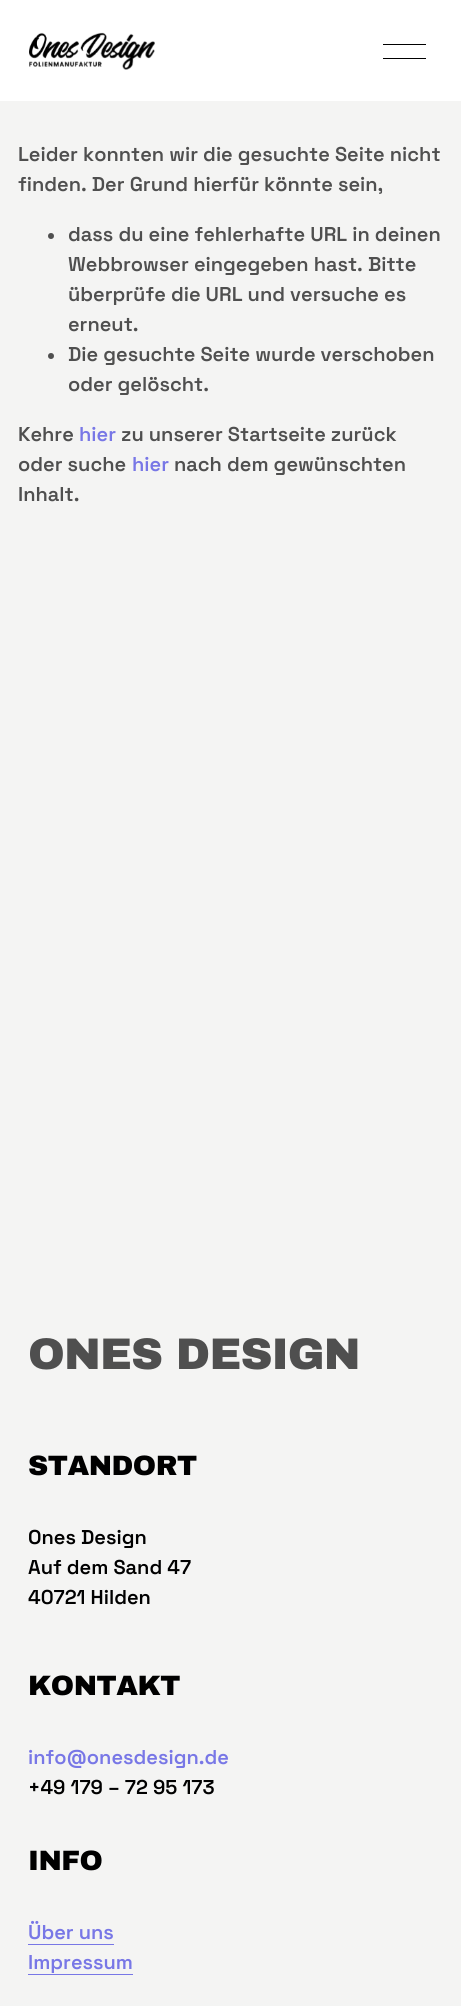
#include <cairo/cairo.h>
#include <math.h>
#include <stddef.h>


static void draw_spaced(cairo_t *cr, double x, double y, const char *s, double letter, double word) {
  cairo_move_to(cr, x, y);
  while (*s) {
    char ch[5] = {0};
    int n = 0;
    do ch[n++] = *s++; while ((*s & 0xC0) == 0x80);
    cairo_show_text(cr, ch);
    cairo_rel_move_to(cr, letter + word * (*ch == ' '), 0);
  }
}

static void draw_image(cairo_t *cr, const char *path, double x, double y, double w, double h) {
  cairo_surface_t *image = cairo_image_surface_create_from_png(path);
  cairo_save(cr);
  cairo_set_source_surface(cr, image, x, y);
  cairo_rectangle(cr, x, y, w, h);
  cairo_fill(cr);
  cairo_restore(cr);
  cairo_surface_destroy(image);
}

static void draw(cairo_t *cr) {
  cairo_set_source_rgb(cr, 244 / 255.0, 244 / 255.0, 243 / 255.0);
  cairo_paint(cr);
  cairo_set_source_rgb(cr, 1, 1, 1);
  cairo_rectangle(cr, 0, 0, 461, 101);
  cairo_fill(cr);
  draw_image(cr, "images/1.png", 29, 32, 126, 38);
  cairo_set_source_rgb(cr, 0, 0, 0);
  cairo_rectangle(cr, 383, 44, 43, 1);
  cairo_fill(cr);
  cairo_rectangle(cr, 383, 58, 43, 1);
  cairo_fill(cr);
  cairo_set_source_rgb(cr, 79 / 255.0, 79 / 255.0, 79 / 255.0);
  cairo_arc(cr, 51, 236, 3, 0, 2 * M_PI);
  cairo_fill(cr);
  cairo_arc(cr, 51, 356, 3, 0, 2 * M_PI);
  cairo_fill(cr);
  cairo_set_source_rgb(cr, 120 / 255.0, 119 / 255.0, 230 / 255.0);
  cairo_rectangle(cr, 28, 1944, 86, 1);
  cairo_fill(cr);
  cairo_rectangle(cr, 28, 1974, 105, 1);
  cairo_fill(cr);
  cairo_select_font_face(cr, "Space Grotesk SemiBold", CAIRO_FONT_SLANT_NORMAL, CAIRO_FONT_WEIGHT_NORMAL);
  cairo_set_font_size(cr, 20);
  cairo_set_source_rgb(cr, 79 / 255.0, 79 / 255.0, 79 / 255.0);
  cairo_move_to(cr, 18, 161);
  cairo_show_text(cr, "Leider konnten wir die gesuchte Seite nicht");
  cairo_move_to(cr, 18, 191);
  cairo_show_text(cr, "finden. Der Grund hierfür könnte sein,");
  cairo_move_to(cr, 68, 241);
  cairo_show_text(cr, "dass du eine fehlerhafte URL in deinen");
  cairo_move_to(cr, 68, 271);
  cairo_show_text(cr, "Webbrowser eingegeben hast. Bitte");
  cairo_move_to(cr, 68, 301);
  cairo_show_text(cr, "überprüfe die URL und versuche es");
  cairo_move_to(cr, 68, 331);
  cairo_show_text(cr, "erneut.");
  cairo_move_to(cr, 68, 361);
  cairo_show_text(cr, "Die gesuchte Seite wurde verschoben");
  cairo_move_to(cr, 68, 391);
  cairo_show_text(cr, "oder gelöscht.");
  cairo_move_to(cr, 18, 441);
  cairo_show_text(cr, "Kehre");
  cairo_set_source_rgb(cr, 120 / 255.0, 119 / 255.0, 230 / 255.0);
  cairo_move_to(cr, 79, 441);
  cairo_show_text(cr, "hier");
  cairo_set_source_rgb(cr, 79 / 255.0, 79 / 255.0, 79 / 255.0);
  cairo_move_to(cr, 121, 441);
  cairo_show_text(cr, "zu unserer Startseite zurück");
  cairo_move_to(cr, 18, 471);
  cairo_show_text(cr, "oder suche");
  cairo_set_source_rgb(cr, 120 / 255.0, 119 / 255.0, 230 / 255.0);
  cairo_move_to(cr, 132, 471);
  cairo_show_text(cr, "hier");
  cairo_set_source_rgb(cr, 79 / 255.0, 79 / 255.0, 79 / 255.0);
  cairo_move_to(cr, 174, 471);
  cairo_show_text(cr, "nach dem gewünschten");
  cairo_move_to(cr, 18, 501);
  cairo_show_text(cr, "Inhalt.");
  cairo_select_font_face(cr, "Archivo Black Black", CAIRO_FONT_SLANT_NORMAL, CAIRO_FONT_WEIGHT_NORMAL);
  cairo_set_font_size(cr, 44.25);
  draw_spaced(cr, 28, 1369, "ONES DESIGN", -0.9, 0);
  cairo_set_font_size(cr, 28);
  cairo_set_source_rgb(cr, 0, 0, 0);
  draw_spaced(cr, 28, 1475, "STANDORT", -0.5, 0);
  cairo_select_font_face(cr, "Space Grotesk SemiBold", CAIRO_FONT_SLANT_NORMAL, CAIRO_FONT_WEIGHT_NORMAL);
  cairo_set_font_size(cr, 20);
  cairo_move_to(cr, 28, 1544);
  cairo_show_text(cr, "Ones Design");
  cairo_move_to(cr, 28, 1574);
  cairo_show_text(cr, "Auf dem Sand 47");
  cairo_move_to(cr, 28, 1604);
  cairo_show_text(cr, "40721 Hilden");
  cairo_select_font_face(cr, "Archivo Black Black", CAIRO_FONT_SLANT_NORMAL, CAIRO_FONT_WEIGHT_NORMAL);
  cairo_set_font_size(cr, 28);
  draw_spaced(cr, 28, 1695, "KONTAKT", -0.5, 0);
  cairo_select_font_face(cr, "Space Grotesk SemiBold", CAIRO_FONT_SLANT_NORMAL, CAIRO_FONT_WEIGHT_NORMAL);
  cairo_set_font_size(cr, 20);
  cairo_set_source_rgb(cr, 120 / 255.0, 119 / 255.0, 230 / 255.0);
  cairo_move_to(cr, 28, 1764);
  cairo_show_text(cr, "info@onesdesign.de");
  cairo_set_source_rgb(cr, 0, 0, 0);
  cairo_move_to(cr, 28, 1794);
  cairo_show_text(cr, "+49 179 – 72 95 173");
  cairo_select_font_face(cr, "Archivo Black Black", CAIRO_FONT_SLANT_NORMAL, CAIRO_FONT_WEIGHT_NORMAL);
  cairo_set_font_size(cr, 28);
  draw_spaced(cr, 28, 1870, "INFO", -0.5, 0);
  cairo_select_font_face(cr, "Space Grotesk SemiBold", CAIRO_FONT_SLANT_NORMAL, CAIRO_FONT_WEIGHT_NORMAL);
  cairo_set_font_size(cr, 20);
  cairo_set_source_rgb(cr, 120 / 255.0, 119 / 255.0, 230 / 255.0);
  cairo_move_to(cr, 28, 1939);
  cairo_show_text(cr, "Über uns");
  cairo_move_to(cr, 28, 1969);
  cairo_show_text(cr, "Impressum");
}

int main(void) {
  cairo_surface_t *surface = cairo_image_surface_create(CAIRO_FORMAT_RGB24, 461, 2006);
  cairo_t *cr = cairo_create(surface);
  cairo_font_options_t *options = cairo_font_options_create();
  cairo_font_options_set_hint_metrics(options, CAIRO_HINT_METRICS_OFF);
  cairo_font_options_set_hint_style(options, CAIRO_HINT_STYLE_NONE);
  cairo_set_font_options(cr, options);
  cairo_set_miter_limit(cr, 4);
  draw(cr);
  cairo_surface_write_to_png(surface, "out.png");
  cairo_font_options_destroy(options);
  cairo_destroy(cr);
  cairo_surface_destroy(surface);
  return 0;
}
